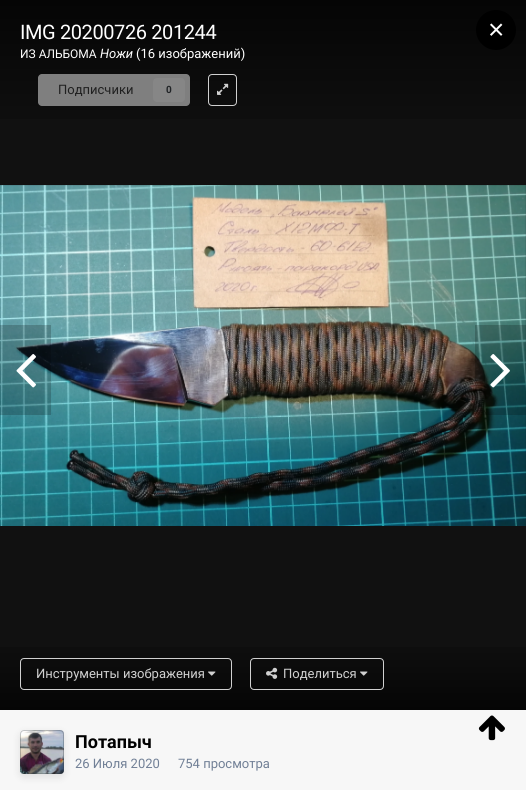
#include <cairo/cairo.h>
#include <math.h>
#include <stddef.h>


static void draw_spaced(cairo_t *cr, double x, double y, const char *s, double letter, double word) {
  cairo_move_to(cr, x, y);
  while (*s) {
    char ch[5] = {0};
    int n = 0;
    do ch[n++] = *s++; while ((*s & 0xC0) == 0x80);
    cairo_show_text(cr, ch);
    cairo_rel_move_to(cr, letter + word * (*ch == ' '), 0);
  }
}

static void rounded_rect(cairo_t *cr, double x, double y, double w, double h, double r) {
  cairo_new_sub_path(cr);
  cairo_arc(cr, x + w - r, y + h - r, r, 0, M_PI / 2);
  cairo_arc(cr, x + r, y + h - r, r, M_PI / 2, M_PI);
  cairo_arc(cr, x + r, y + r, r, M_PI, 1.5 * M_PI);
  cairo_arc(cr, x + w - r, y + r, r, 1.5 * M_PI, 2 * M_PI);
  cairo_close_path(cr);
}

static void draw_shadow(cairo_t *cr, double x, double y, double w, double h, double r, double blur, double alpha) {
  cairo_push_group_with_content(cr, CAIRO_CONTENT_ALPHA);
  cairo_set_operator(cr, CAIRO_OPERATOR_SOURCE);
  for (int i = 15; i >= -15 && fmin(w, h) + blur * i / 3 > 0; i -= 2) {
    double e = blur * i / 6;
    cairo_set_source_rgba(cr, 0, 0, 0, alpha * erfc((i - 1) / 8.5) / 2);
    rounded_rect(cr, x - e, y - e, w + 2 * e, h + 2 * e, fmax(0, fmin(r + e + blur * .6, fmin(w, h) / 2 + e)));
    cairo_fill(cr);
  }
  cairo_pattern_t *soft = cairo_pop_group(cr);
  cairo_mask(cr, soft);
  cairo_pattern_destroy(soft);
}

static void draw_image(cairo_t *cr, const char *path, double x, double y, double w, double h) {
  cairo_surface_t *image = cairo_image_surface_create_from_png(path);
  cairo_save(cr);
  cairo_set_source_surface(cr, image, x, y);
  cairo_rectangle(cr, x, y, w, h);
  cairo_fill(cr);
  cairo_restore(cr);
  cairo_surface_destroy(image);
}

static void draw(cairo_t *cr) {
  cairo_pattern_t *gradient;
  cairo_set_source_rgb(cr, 17 / 255.0, 17 / 255.0, 17 / 255.0);
  cairo_paint(cr);
  gradient = cairo_pattern_create_linear(263, 0, 263, 150);
  cairo_pattern_add_color_stop_rgba(gradient, 0, 5 / 255.0, 5 / 255.0, 5 / 255.0, 1);
  cairo_pattern_add_color_stop_rgba(gradient, 1, 17 / 255.0, 17 / 255.0, 17 / 255.0, 1);
  cairo_set_source(cr, gradient);
  cairo_pattern_destroy(gradient);
  cairo_rectangle(cr, 0, 0, 526, 119);
  cairo_fill(cr);
  cairo_set_source_rgb(cr, 127 / 255.0, 127 / 255.0, 127 / 255.0);
  rounded_rect(cr, 38, 74, 152, 32, 4);
  cairo_fill(cr);
  cairo_set_source_rgb(cr, 134 / 255.0, 134 / 255.0, 134 / 255.0);
  rounded_rect(cr, 153, 78, 32, 24, 4);
  cairo_fill(cr);
  rounded_rect(cr, 208.5, 74.5, 28, 31, 3.5);
  cairo_set_source_rgb(cr, 208 / 255.0, 208 / 255.0, 208 / 255.0);
  cairo_set_line_width(cr, 1);
  cairo_stroke(cr);
  draw_image(cr, "images/1.png", 217, 83, 12, 12);
  gradient = cairo_pattern_create_linear(263, 630, 263, 710);
  cairo_pattern_add_color_stop_rgba(gradient, 0, 17 / 255.0, 17 / 255.0, 17 / 255.0, 1);
  cairo_pattern_add_color_stop_rgba(gradient, 1, 5 / 255.0, 5 / 255.0, 5 / 255.0, 1);
  cairo_set_source(cr, gradient);
  cairo_pattern_destroy(gradient);
  cairo_rectangle(cr, 0, 647, 526, 63);
  cairo_fill(cr);
  rounded_rect(cr, 20.5, 658.5, 211, 31, 3.5);
  cairo_set_source_rgb(cr, 208 / 255.0, 208 / 255.0, 208 / 255.0);
  cairo_stroke(cr);
  draw_image(cr, "images/2.png", 208, 671, 8, 5);
  rounded_rect(cr, 250.5, 658.5, 133, 31, 3.5);
  cairo_stroke(cr);
  draw_image(cr, "images/3.png", 266, 667, 12, 12);
  draw_image(cr, "images/2.png", 360, 671, 8, 5);
  draw_image(cr, "images/4.png", 0, 185, 526, 341);
  cairo_set_source_rgba(cr, 0, 0, 0, 0.2);
  cairo_rectangle(cr, 0, 325, 51, 90);
  cairo_fill(cr);
  draw_image(cr, "images/5.png", 16, 354, 20, 34);
  cairo_rectangle(cr, 475, 325, 51, 90);
  cairo_fill(cr);
  draw_image(cr, "images/6.png", 490, 354, 20, 34);
  cairo_set_source_rgb(cr, 247 / 255.0, 247 / 255.0, 247 / 255.0);
  cairo_rectangle(cr, 0, 710, 526, 80);
  cairo_fill(cr);
  draw_image(cr, "images/7.png", 20, 730, 44, 44);
  cairo_save(cr);
  cairo_set_fill_rule(cr, CAIRO_FILL_RULE_EVEN_ODD);
  cairo_new_path(cr);
  cairo_move_to(cr, 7, 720);
  cairo_line_to(cr, 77, 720);
  cairo_line_to(cr, 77, 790);
  cairo_line_to(cr, 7, 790);
  cairo_close_path(cr);
  cairo_move_to(cr, 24, 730);
  cairo_line_to(cr, 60, 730);
  cairo_curve_to(cr, 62, 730, 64, 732, 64, 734);
  cairo_line_to(cr, 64, 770);
  cairo_curve_to(cr, 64, 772, 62, 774, 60, 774);
  cairo_line_to(cr, 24, 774);
  cairo_curve_to(cr, 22, 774, 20, 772, 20, 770);
  cairo_line_to(cr, 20, 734);
  cairo_curve_to(cr, 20, 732, 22, 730, 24, 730);
  cairo_close_path(cr);
  cairo_clip(cr);
  cairo_set_source_rgb(cr, 0, 0, 0);
  draw_shadow(cr, 20, 733, 44, 44, 4, 4, 0.1);
  cairo_restore(cr);
  rounded_rect(cr, 20.5, 730.5, 43, 43, 3.5);
  cairo_set_source_rgba(cr, 53 / 255.0, 60 / 255.0, 65 / 255.0, 0.3);
  cairo_stroke(cr);
  cairo_set_source_rgb(cr, 0, 0, 0);
  cairo_arc(cr, 496, 30, 20, 0, 2 * M_PI);
  cairo_fill(cr);
  draw_image(cr, "images/8.png", 478, 715, 27, 26);
  cairo_select_font_face(cr, "Roboto", CAIRO_FONT_SLANT_NORMAL, CAIRO_FONT_WEIGHT_NORMAL);
  cairo_set_font_size(cr, 20);
  cairo_set_source_rgb(cr, 1, 1, 1);
  draw_spaced(cr, 20, 39, "IMG 20200726 201244", -0.4, 0);
  cairo_set_font_size(cr, 12);
  cairo_move_to(cr, 20, 58);
  cairo_show_text(cr, "ИЗ АЛЬБОМА");
  cairo_select_font_face(cr, "Roboto", CAIRO_FONT_SLANT_ITALIC, CAIRO_FONT_WEIGHT_NORMAL);
  cairo_set_font_size(cr, 13);
  cairo_move_to(cr, 100, 58);
  cairo_show_text(cr, "Ножи");
  cairo_select_font_face(cr, "Roboto", CAIRO_FONT_SLANT_NORMAL, CAIRO_FONT_WEIGHT_NORMAL);
  cairo_move_to(cr, 136, 58);
  cairo_show_text(cr, "(16 изображений)");
  cairo_set_source_rgb(cr, 32 / 255.0, 32 / 255.0, 32 / 255.0);
  cairo_move_to(cr, 58, 94);
  cairo_show_text(cr, "Подписчики");
  cairo_select_font_face(cr, "Roboto", CAIRO_FONT_SLANT_NORMAL, CAIRO_FONT_WEIGHT_BOLD);
  cairo_set_font_size(cr, 10);
  cairo_set_source_rgb(cr, 33 / 255.0, 36 / 255.0, 39 / 255.0);
  cairo_move_to(cr, 166, 93);
  cairo_show_text(cr, "0");
  cairo_select_font_face(cr, "Roboto", CAIRO_FONT_SLANT_NORMAL, CAIRO_FONT_WEIGHT_NORMAL);
  cairo_set_font_size(cr, 13);
  cairo_set_source_rgb(cr, 208 / 255.0, 208 / 255.0, 208 / 255.0);
  cairo_move_to(cr, 36, 678);
  cairo_show_text(cr, "Инструменты изображения");
  cairo_move_to(cr, 283, 678);
  cairo_show_text(cr, "Поделиться");
  cairo_select_font_face(cr, "Roboto", CAIRO_FONT_SLANT_NORMAL, CAIRO_FONT_WEIGHT_BOLD);
  cairo_set_font_size(cr, 18);
  cairo_set_source_rgb(cr, 0, 0, 0);
  cairo_move_to(cr, 75, 748);
  cairo_show_text(cr, "Потапыч");
  cairo_select_font_face(cr, "Roboto", CAIRO_FONT_SLANT_NORMAL, CAIRO_FONT_WEIGHT_NORMAL);
  cairo_set_font_size(cr, 13);
  cairo_set_source_rgb(cr, 113 / 255.0, 128 / 255.0, 150 / 255.0);
  cairo_move_to(cr, 75, 768);
  cairo_show_text(cr, "26 Июля 2020");
  cairo_move_to(cr, 178, 768);
  cairo_show_text(cr, "754 просмотра");
  cairo_select_font_face(cr, "Liberation Sans", CAIRO_FONT_SLANT_NORMAL, CAIRO_FONT_WEIGHT_NORMAL);
  cairo_set_font_size(cr, 28);
  cairo_set_source_rgb(cr, 1, 1, 1);
  cairo_move_to(cr, 488, 39);
  cairo_show_text(cr, "×");
}

int main(void) {
  cairo_surface_t *surface = cairo_image_surface_create(CAIRO_FORMAT_RGB24, 526, 790);
  cairo_t *cr = cairo_create(surface);
  cairo_font_options_t *options = cairo_font_options_create();
  cairo_font_options_set_hint_metrics(options, CAIRO_HINT_METRICS_OFF);
  cairo_font_options_set_hint_style(options, CAIRO_HINT_STYLE_NONE);
  cairo_set_font_options(cr, options);
  cairo_set_miter_limit(cr, 4);
  draw(cr);
  cairo_surface_write_to_png(surface, "out.png");
  cairo_font_options_destroy(options);
  cairo_destroy(cr);
  cairo_surface_destroy(surface);
  return 0;
}
